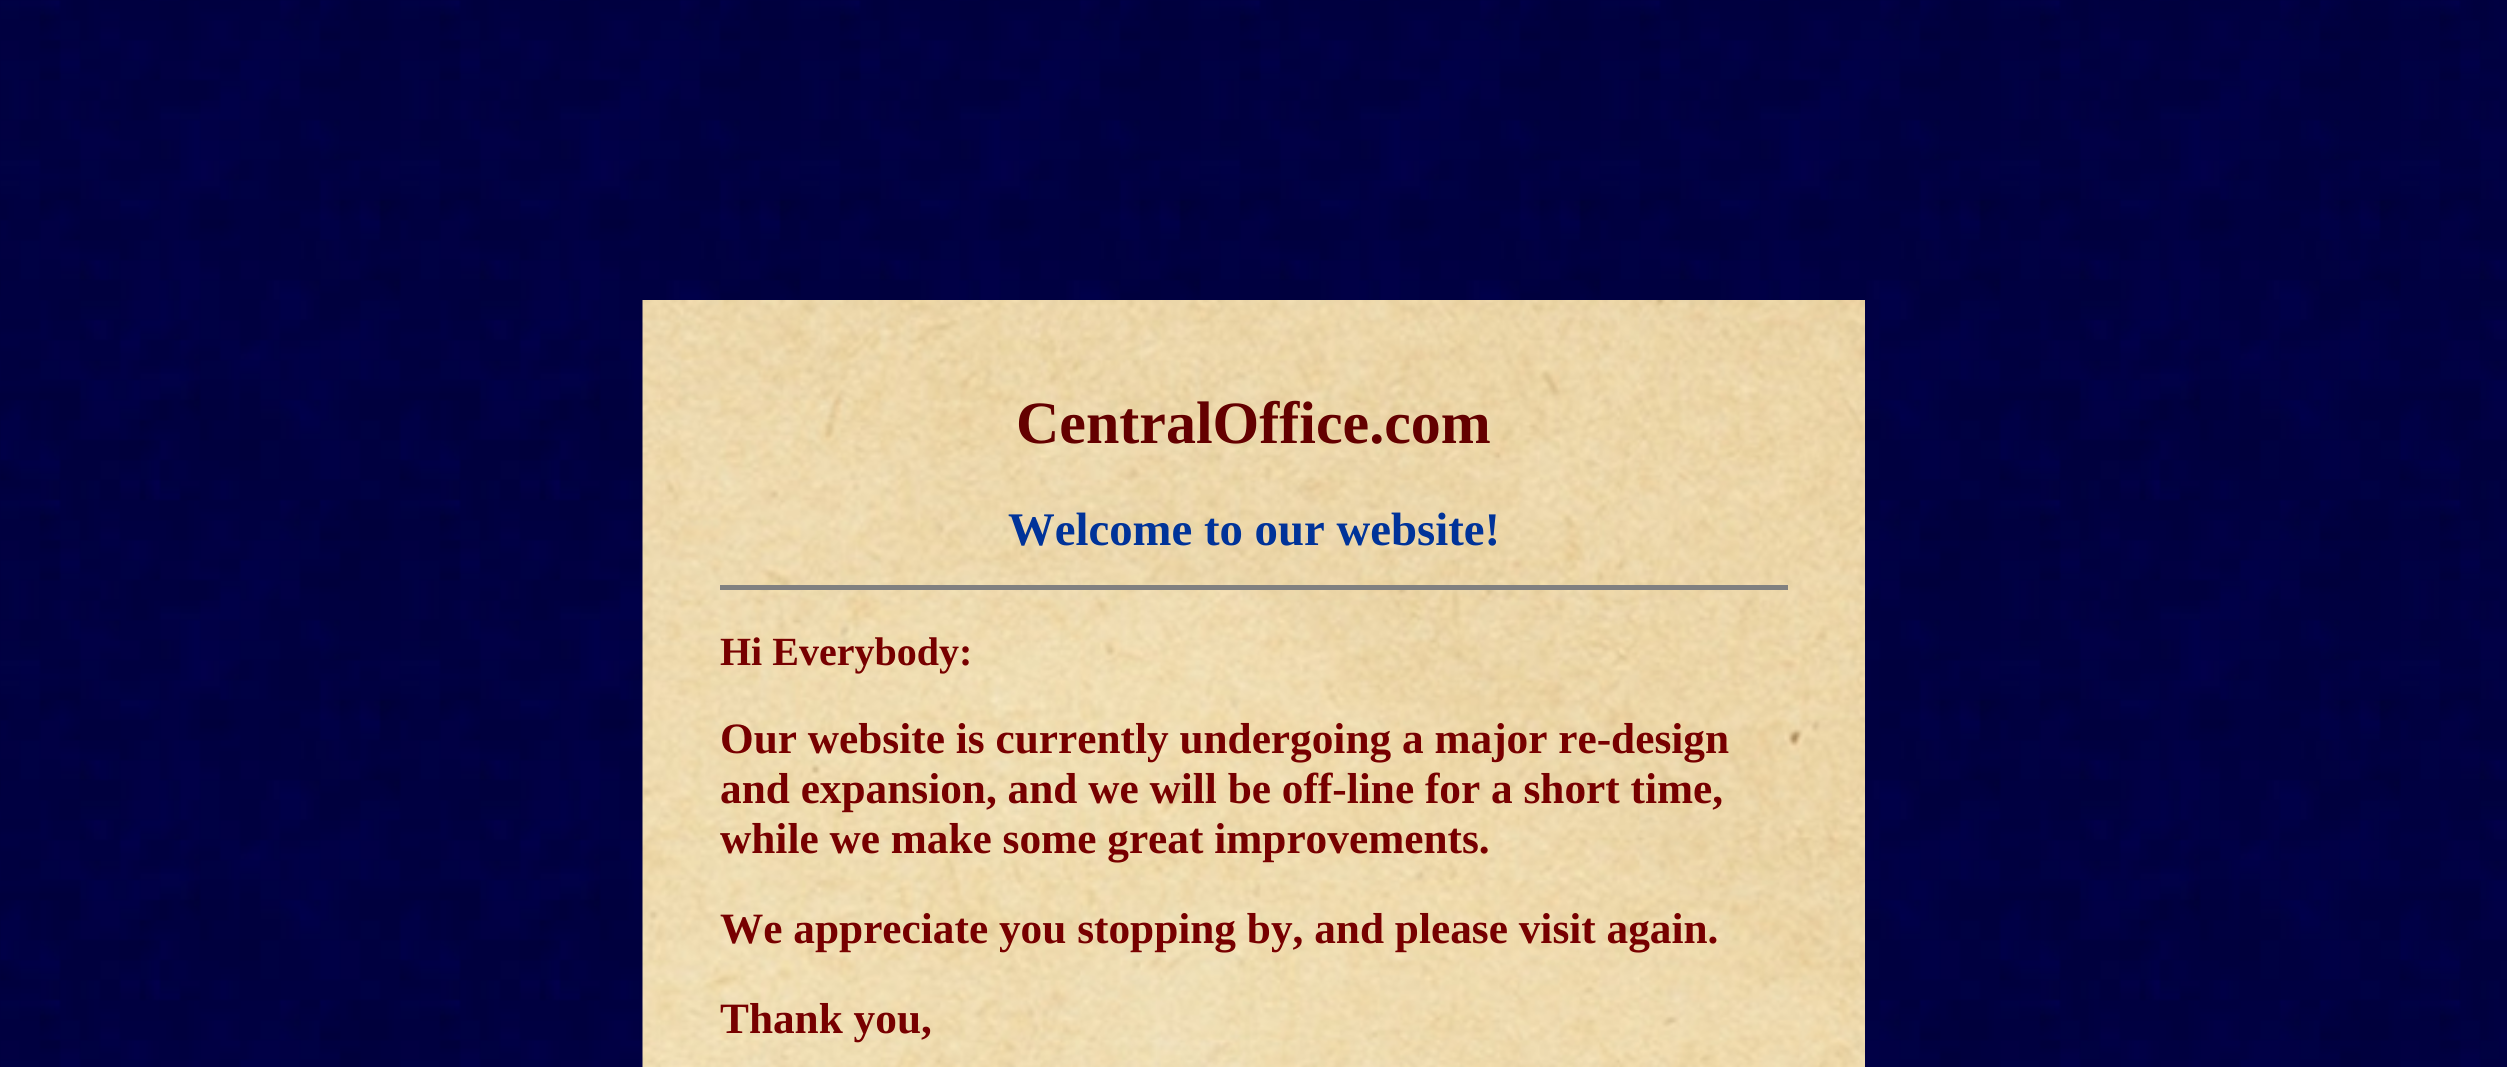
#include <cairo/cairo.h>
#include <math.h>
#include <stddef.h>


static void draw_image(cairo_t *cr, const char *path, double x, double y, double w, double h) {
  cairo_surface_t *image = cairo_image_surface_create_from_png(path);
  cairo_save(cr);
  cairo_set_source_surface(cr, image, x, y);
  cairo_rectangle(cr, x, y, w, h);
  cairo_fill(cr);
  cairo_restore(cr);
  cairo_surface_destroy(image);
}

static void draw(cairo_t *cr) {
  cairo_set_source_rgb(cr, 1, 1, 1);
  cairo_paint(cr);
  draw_image(cr, "images/1.png", 0, 0, 2507, 1067);
  draw_image(cr, "images/2.png", 642, 300, 1223, 767);
  cairo_set_source_rgb(cr, 128 / 255.0, 128 / 255.0, 128 / 255.0);
  cairo_rectangle(cr, 720, 585, 1068, 5);
  cairo_fill(cr);
  cairo_select_font_face(cr, "Liberation Serif", CAIRO_FONT_SLANT_NORMAL, CAIRO_FONT_WEIGHT_BOLD);
  cairo_set_font_size(cr, 60);
  cairo_set_source_rgb(cr, 100 / 255.0, 0, 0);
  cairo_move_to(cr, 1016, 443);
  cairo_show_text(cr, "CentralOffice.com");
  cairo_set_font_size(cr, 46.75);
  cairo_set_source_rgb(cr, 0, 51 / 255.0, 153 / 255.0);
  cairo_move_to(cr, 1008, 545);
  cairo_show_text(cr, "Welcome to our website!");
  cairo_set_font_size(cr, 40);
  cairo_set_source_rgb(cr, 119 / 255.0, 0, 0);
  cairo_move_to(cr, 720, 665);
  cairo_show_text(cr, "Hi Everybody:");
  cairo_set_font_size(cr, 43.3);
  cairo_move_to(cr, 720, 753);
  cairo_show_text(cr, "Our website is currently undergoing a major re-design");
  cairo_move_to(cr, 720, 803);
  cairo_show_text(cr, "and expansion, and we will be off-line for a short time,");
  cairo_move_to(cr, 720, 853);
  cairo_show_text(cr, "while we make some great improvements.");
  cairo_move_to(cr, 720, 943);
  cairo_show_text(cr, "We appreciate you stopping by, and please visit again.");
  cairo_move_to(cr, 720, 1033);
  cairo_show_text(cr, "Thank you,");
}

int main(void) {
  cairo_surface_t *surface = cairo_image_surface_create(CAIRO_FORMAT_RGB24, 2507, 1067);
  cairo_t *cr = cairo_create(surface);
  cairo_font_options_t *options = cairo_font_options_create();
  cairo_font_options_set_hint_metrics(options, CAIRO_HINT_METRICS_OFF);
  cairo_font_options_set_hint_style(options, CAIRO_HINT_STYLE_NONE);
  cairo_set_font_options(cr, options);
  cairo_set_miter_limit(cr, 4);
  draw(cr);
  cairo_surface_write_to_png(surface, "out.png");
  cairo_font_options_destroy(options);
  cairo_destroy(cr);
  cairo_surface_destroy(surface);
  return 0;
}
